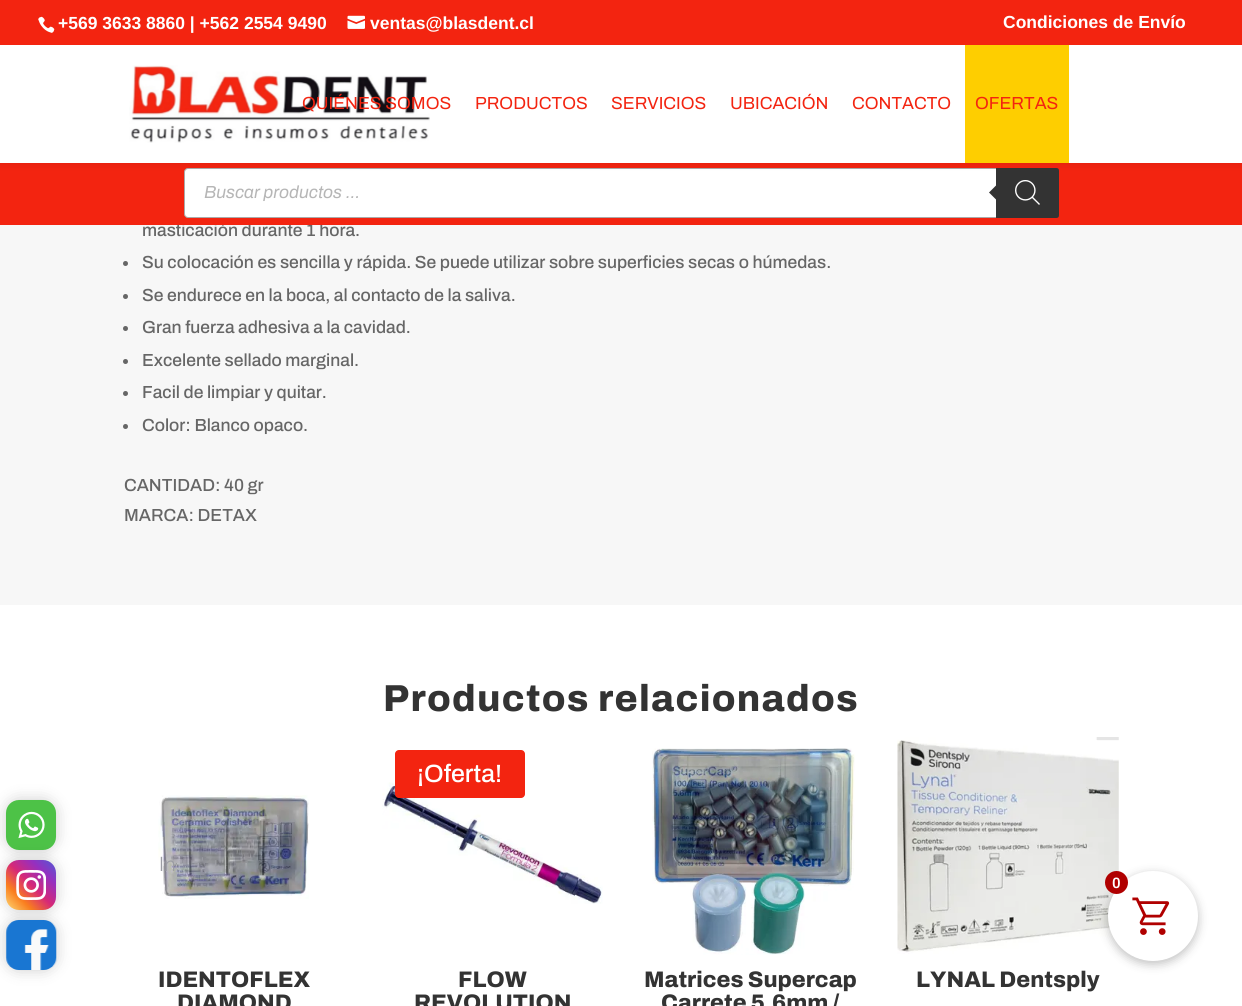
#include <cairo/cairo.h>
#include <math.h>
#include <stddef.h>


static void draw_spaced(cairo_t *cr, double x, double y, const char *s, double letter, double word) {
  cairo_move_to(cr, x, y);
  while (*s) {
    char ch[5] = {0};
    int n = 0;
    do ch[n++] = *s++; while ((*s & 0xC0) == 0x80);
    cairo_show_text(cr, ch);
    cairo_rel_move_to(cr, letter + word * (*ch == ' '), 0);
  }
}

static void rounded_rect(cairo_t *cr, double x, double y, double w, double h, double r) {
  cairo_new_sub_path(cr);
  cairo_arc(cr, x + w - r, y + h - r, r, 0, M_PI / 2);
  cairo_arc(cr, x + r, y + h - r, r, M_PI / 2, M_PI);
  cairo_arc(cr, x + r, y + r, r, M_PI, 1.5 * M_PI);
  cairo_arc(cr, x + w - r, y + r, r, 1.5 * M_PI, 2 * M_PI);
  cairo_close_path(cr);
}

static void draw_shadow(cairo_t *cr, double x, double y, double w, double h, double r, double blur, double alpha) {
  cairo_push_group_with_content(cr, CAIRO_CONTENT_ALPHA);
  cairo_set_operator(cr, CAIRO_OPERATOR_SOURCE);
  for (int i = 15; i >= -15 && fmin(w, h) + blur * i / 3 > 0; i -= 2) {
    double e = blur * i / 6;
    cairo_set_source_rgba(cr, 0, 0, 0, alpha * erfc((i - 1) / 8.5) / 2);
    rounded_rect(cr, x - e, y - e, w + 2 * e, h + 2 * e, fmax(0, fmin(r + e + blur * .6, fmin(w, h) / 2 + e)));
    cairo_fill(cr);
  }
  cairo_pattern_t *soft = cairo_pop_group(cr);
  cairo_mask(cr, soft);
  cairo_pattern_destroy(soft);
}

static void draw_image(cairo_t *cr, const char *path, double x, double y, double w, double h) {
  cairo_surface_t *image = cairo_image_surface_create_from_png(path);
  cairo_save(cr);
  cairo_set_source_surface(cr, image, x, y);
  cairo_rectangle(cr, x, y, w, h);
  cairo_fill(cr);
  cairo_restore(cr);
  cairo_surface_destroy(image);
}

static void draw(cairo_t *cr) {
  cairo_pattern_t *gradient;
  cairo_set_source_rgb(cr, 1, 1, 1);
  cairo_paint(cr);
  cairo_set_source_rgb(cr, 247 / 255.0, 247 / 255.0, 247 / 255.0);
  cairo_rectangle(cr, 0, 225, 1242, 380);
  cairo_fill(cr);
  cairo_set_source_rgb(cr, 102 / 255.0, 102 / 255.0, 102 / 255.0);
  cairo_arc(cr, 125.5, 263.5, 2.5, 0, 2 * M_PI);
  cairo_fill(cr);
  cairo_arc(cr, 125.5, 296.5, 2.5, 0, 2 * M_PI);
  cairo_fill(cr);
  cairo_arc(cr, 125.5, 328.5, 2.5, 0, 2 * M_PI);
  cairo_fill(cr);
  cairo_arc(cr, 125.5, 361.5, 2.5, 0, 2 * M_PI);
  cairo_fill(cr);
  cairo_arc(cr, 125.5, 393.5, 2.5, 0, 2 * M_PI);
  cairo_fill(cr);
  cairo_arc(cr, 125.5, 426.5, 2.5, 0, 2 * M_PI);
  cairo_fill(cr);
  draw_image(cr, "images/5.png", 158, 795, 151, 104);
  draw_image(cr, "images/6.png", 382, 782, 221, 122);
  cairo_set_source_rgb(cr, 243 / 255.0, 36 / 255.0, 16 / 255.0);
  rounded_rect(cr, 395, 750, 130, 48, 4);
  cairo_fill(cr);
  draw_image(cr, "images/7.png", 652, 748, 203, 207);
  draw_image(cr, "images/8.png", 897, 737, 222, 217);
  cairo_set_source_rgb(cr, 0, 0, 0);
  draw_shadow(cr, 6, 800, 50, 50, 13, 7.5, 0.2);
  cairo_set_source_rgb(cr, 77 / 255.0, 194 / 255.0, 71 / 255.0);
  rounded_rect(cr, 6, 800, 50, 50, 13);
  cairo_fill(cr);
  draw_image(cr, "images/9.png", 18, 811, 27, 28);
  cairo_set_source_rgb(cr, 0, 0, 0);
  draw_shadow(cr, 6, 860, 50, 50, 13, 7.5, 0.2);
  gradient = cairo_pattern_create_linear(6.2, 910, 56, 860);
  cairo_pattern_add_color_stop_rgba(gradient, 0, 254 / 255.0, 217 / 255.0, 117 / 255.0, 1);
  cairo_pattern_add_color_stop_rgba(gradient, 0.26, 250 / 255.0, 126 / 255.0, 30 / 255.0, 1);
  cairo_pattern_add_color_stop_rgba(gradient, 0.5, 214 / 255.0, 41 / 255.0, 119 / 255.0, 1);
  cairo_pattern_add_color_stop_rgba(gradient, 0.75, 150 / 255.0, 47 / 255.0, 191 / 255.0, 1);
  cairo_pattern_add_color_stop_rgba(gradient, 1, 79 / 255.0, 90 / 255.0, 213 / 255.0, 1);
  cairo_set_source(cr, gradient);
  cairo_pattern_destroy(gradient);
  rounded_rect(cr, 6, 860, 50, 50, 13);
  cairo_fill(cr);
  draw_image(cr, "images/10.png", 16, 870, 30, 30);
  cairo_set_source_rgb(cr, 0, 0, 0);
  draw_shadow(cr, 6, 920, 50, 50, 13, 7.5, 0.2);
  draw_image(cr, "images/11.png", 6, 920, 51, 50);
  draw_shadow(cr, 1108, 874, 90, 90, 45, 5, 0.25);
  cairo_set_source_rgb(cr, 1, 1, 1);
  cairo_arc(cr, 1153, 916, 45, 0, 2 * M_PI);
  cairo_fill(cr);
  draw_image(cr, "images/12.png", 1132, 897, 38, 38);
  cairo_set_source_rgb(cr, 176 / 255.0, 0, 0);
  cairo_arc(cr, 1116.5, 882.5, 11.5, 0, 2 * M_PI);
  cairo_fill(cr);
  cairo_select_font_face(cr, "Archivo Medium", CAIRO_FONT_SLANT_NORMAL, CAIRO_FONT_WEIGHT_NORMAL);
  cairo_set_font_size(cr, 17.5);
  cairo_set_source_rgb(cr, 102 / 255.0, 102 / 255.0, 102 / 255.0);
  cairo_move_to(cr, 142, 236);
  cairo_show_text(cr, "masticación durante 1 hora.");
  cairo_set_source_rgb(cr, 243 / 255.0, 36 / 255.0, 16 / 255.0);
  cairo_rectangle(cr, 0, 163, 1242, 62);
  cairo_fill(cr);
  cairo_set_source_rgb(cr, 1, 1, 1);
  rounded_rect(cr, 184.5, 168.5, 874, 49, 3.5);
  cairo_fill_preserve(cr);
  cairo_set_source_rgb(cr, 170 / 255.0, 170 / 255.0, 170 / 255.0);
  cairo_set_line_width(cr, 1);
  cairo_stroke(cr);
  cairo_set_source_rgb(cr, 51 / 255.0, 51 / 255.0, 51 / 255.0);
  cairo_new_path(cr);
  cairo_move_to(cr, 996, 168);
  cairo_line_to(cr, 1056.5, 168);
  cairo_curve_to(cr, 1058, 168, 1059, 169, 1059, 170.5);
  cairo_line_to(cr, 1059, 215.5);
  cairo_curve_to(cr, 1059, 217, 1058, 218, 1056.5, 218);
  cairo_line_to(cr, 996, 218);
  cairo_close_path(cr);
  cairo_fill(cr);
  cairo_set_source_rgb(cr, 0, 0, 0);
  draw_shadow(cr, 0, 45, 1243, 118, 0, 4.5, 0.1);
  cairo_set_source_rgb(cr, 243 / 255.0, 36 / 255.0, 16 / 255.0);
  cairo_rectangle(cr, 0, 0, 1242, 45);
  cairo_fill(cr);
  cairo_select_font_face(cr, "Liberation Sans", CAIRO_FONT_SLANT_NORMAL, CAIRO_FONT_WEIGHT_BOLD);
  cairo_set_source_rgb(cr, 1, 1, 1);
  cairo_move_to(cr, 1003, 28);
  cairo_show_text(cr, "Condiciones de Envío");
  cairo_move_to(cr, 370, 29);
  cairo_show_text(cr, "ventas@blasdent.cl");
  draw_image(cr, "images/2.png", 347, 15, 18, 14);
  draw_image(cr, "images/1.png", 38, 16, 17, 17);
  cairo_move_to(cr, 58, 29);
  cairo_show_text(cr, "+569 3633 8860 | +562 2554 9490");
  cairo_rectangle(cr, 0, 45, 1242, 118);
  cairo_fill(cr);
  cairo_set_source_rgb(cr, 254 / 255.0, 206 / 255.0, 0);
  cairo_rectangle(cr, 965, 45, 104, 118);
  cairo_fill(cr);
  cairo_select_font_face(cr, "Archivo", CAIRO_FONT_SLANT_NORMAL, CAIRO_FONT_WEIGHT_NORMAL);
  cairo_set_source_rgb(cr, 243 / 255.0, 36 / 255.0, 16 / 255.0);
  cairo_move_to(cr, 975, 109);
  cairo_show_text(cr, "OFERTAS");
  cairo_move_to(cr, 852, 109);
  cairo_show_text(cr, "CONTACTO");
  cairo_move_to(cr, 730, 109);
  cairo_show_text(cr, "UBICACIÓN");
  cairo_move_to(cr, 611, 109);
  cairo_show_text(cr, "SERVICIOS");
  cairo_move_to(cr, 475, 109);
  cairo_show_text(cr, "PRODUCTOS");
  draw_image(cr, "images/3.png", 129, 65, 301, 78);
  cairo_move_to(cr, 302, 109);
  cairo_show_text(cr, "QUIÉNES SOMOS");
  draw_image(cr, "images/4.png", 1015, 180, 25, 25);
  cairo_set_source_rgb(cr, 51 / 255.0, 51 / 255.0, 51 / 255.0);
  cairo_new_path(cr);
  cairo_move_to(cr, 999, 182.5);
  cairo_line_to(cr, 999, 202.5);
  cairo_line_to(cr, 989, 192.5);
  cairo_close_path(cr);
  cairo_fill(cr);
  cairo_select_font_face(cr, "Archivo", CAIRO_FONT_SLANT_ITALIC, CAIRO_FONT_WEIGHT_NORMAL);
  cairo_set_source_rgb(cr, 182 / 255.0, 182 / 255.0, 182 / 255.0);
  cairo_move_to(cr, 204, 198);
  cairo_show_text(cr, "Buscar productos ...");
  cairo_select_font_face(cr, "Archivo Medium", CAIRO_FONT_SLANT_NORMAL, CAIRO_FONT_WEIGHT_NORMAL);
  cairo_set_source_rgb(cr, 102 / 255.0, 102 / 255.0, 102 / 255.0);
  cairo_move_to(cr, 142, 268);
  cairo_show_text(cr, "Su colocación es sencilla y rápida. Se puede utilizar sobre superficies secas o húmedas.");
  cairo_move_to(cr, 142, 301);
  cairo_show_text(cr, "Se endurece en la boca, al contacto de la saliva.");
  cairo_move_to(cr, 142, 333);
  cairo_show_text(cr, "Gran fuerza adhesiva a la cavidad.");
  cairo_move_to(cr, 142, 366);
  cairo_show_text(cr, "Excelente sellado marginal.");
  cairo_move_to(cr, 142, 398);
  cairo_show_text(cr, "Facil de limpiar y quitar.");
  cairo_move_to(cr, 142, 431);
  cairo_show_text(cr, "Color: Blanco opaco.");
  cairo_move_to(cr, 124, 491);
  cairo_show_text(cr, "CANTIDAD: 40 gr");
  cairo_move_to(cr, 124, 521);
  cairo_show_text(cr, "MARCA: DETAX");
  cairo_select_font_face(cr, "Archivo ExtraBold", CAIRO_FONT_SLANT_NORMAL, CAIRO_FONT_WEIGHT_NORMAL);
  cairo_set_font_size(cr, 37.5);
  cairo_set_source_rgb(cr, 51 / 255.0, 51 / 255.0, 51 / 255.0);
  draw_spaced(cr, 383, 711, "Productos relacionados", 1.25, 0);
  cairo_set_font_size(cr, 22.5);
  cairo_move_to(cr, 158, 987);
  cairo_show_text(cr, "IDENTOFLEX");
  cairo_move_to(cr, 177, 1010);
  cairo_show_text(cr, "DIAMOND");
  cairo_select_font_face(cr, "Archivo Medium", CAIRO_FONT_SLANT_NORMAL, CAIRO_FONT_WEIGHT_NORMAL);
  cairo_set_font_size(cr, 25);
  cairo_set_source_rgb(cr, 1, 1, 1);
  cairo_move_to(cr, 417, 782);
  cairo_show_text(cr, "¡Oferta!");
  cairo_select_font_face(cr, "Archivo ExtraBold", CAIRO_FONT_SLANT_NORMAL, CAIRO_FONT_WEIGHT_NORMAL);
  cairo_set_font_size(cr, 22.5);
  cairo_set_source_rgb(cr, 51 / 255.0, 51 / 255.0, 51 / 255.0);
  cairo_move_to(cr, 458, 987);
  cairo_show_text(cr, "FLOW");
  cairo_move_to(cr, 414, 1010);
  cairo_show_text(cr, "REVOLUTION");
  cairo_move_to(cr, 644, 987);
  cairo_show_text(cr, "Matrices Supercap");
  cairo_move_to(cr, 661, 1010);
  cairo_show_text(cr, "Carrete 5.6mm /");
  cairo_move_to(cr, 916, 987);
  cairo_show_text(cr, "LYNAL Dentsply");
  cairo_select_font_face(cr, "Raleway Thin", CAIRO_FONT_SLANT_NORMAL, CAIRO_FONT_WEIGHT_NORMAL);
  cairo_set_font_size(cr, 20);
  cairo_set_source_rgb(cr, 155 / 255.0, 156 / 255.0, 163 / 255.0);
  cairo_move_to(cr, 159, 871);
  cairo_show_text(cr, "In");
  cairo_select_font_face(cr, "Archivo SemiBold", CAIRO_FONT_SLANT_NORMAL, CAIRO_FONT_WEIGHT_NORMAL);
  cairo_set_font_size(cr, 15);
  cairo_set_source_rgb(cr, 1, 1, 1);
  cairo_move_to(cr, 1112, 888);
  cairo_show_text(cr, "0");
}

int main(void) {
  cairo_surface_t *surface = cairo_image_surface_create(CAIRO_FORMAT_RGB24, 1242, 1006);
  cairo_t *cr = cairo_create(surface);
  cairo_font_options_t *options = cairo_font_options_create();
  cairo_font_options_set_hint_metrics(options, CAIRO_HINT_METRICS_OFF);
  cairo_font_options_set_hint_style(options, CAIRO_HINT_STYLE_NONE);
  cairo_set_font_options(cr, options);
  cairo_set_miter_limit(cr, 4);
  draw(cr);
  cairo_surface_write_to_png(surface, "out.png");
  cairo_font_options_destroy(options);
  cairo_destroy(cr);
  cairo_surface_destroy(surface);
  return 0;
}
